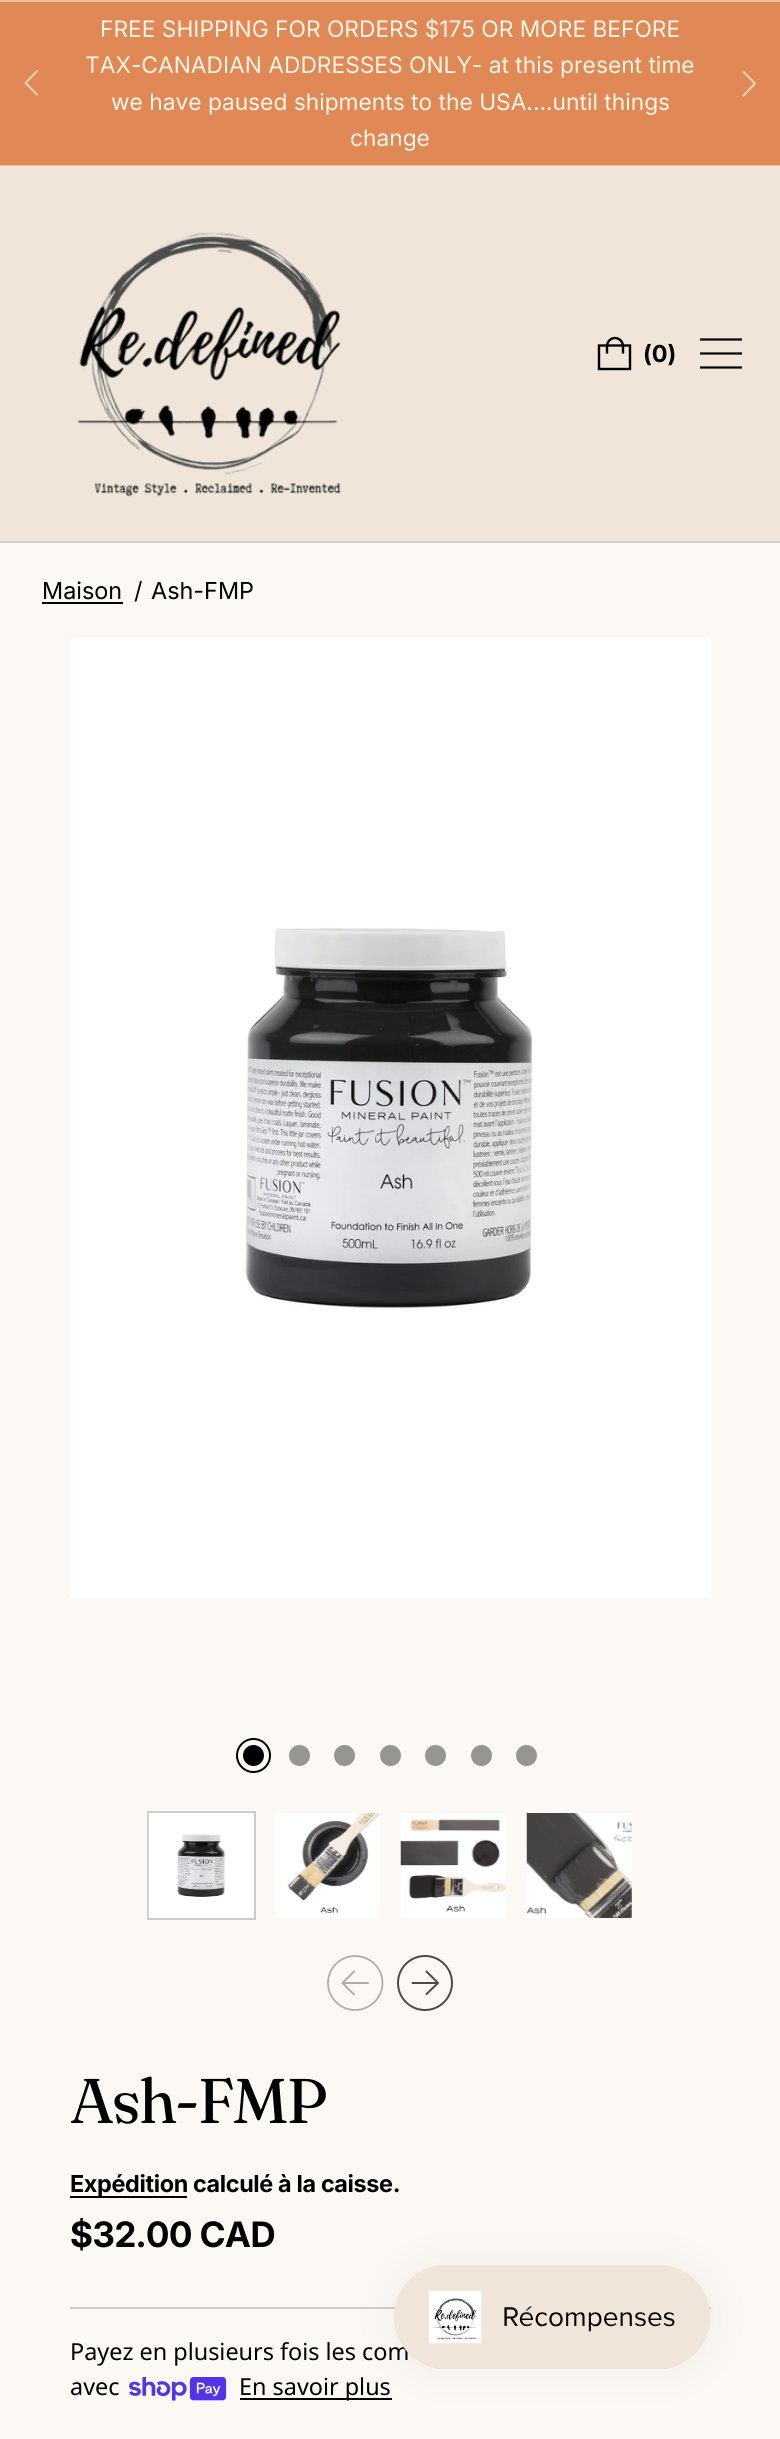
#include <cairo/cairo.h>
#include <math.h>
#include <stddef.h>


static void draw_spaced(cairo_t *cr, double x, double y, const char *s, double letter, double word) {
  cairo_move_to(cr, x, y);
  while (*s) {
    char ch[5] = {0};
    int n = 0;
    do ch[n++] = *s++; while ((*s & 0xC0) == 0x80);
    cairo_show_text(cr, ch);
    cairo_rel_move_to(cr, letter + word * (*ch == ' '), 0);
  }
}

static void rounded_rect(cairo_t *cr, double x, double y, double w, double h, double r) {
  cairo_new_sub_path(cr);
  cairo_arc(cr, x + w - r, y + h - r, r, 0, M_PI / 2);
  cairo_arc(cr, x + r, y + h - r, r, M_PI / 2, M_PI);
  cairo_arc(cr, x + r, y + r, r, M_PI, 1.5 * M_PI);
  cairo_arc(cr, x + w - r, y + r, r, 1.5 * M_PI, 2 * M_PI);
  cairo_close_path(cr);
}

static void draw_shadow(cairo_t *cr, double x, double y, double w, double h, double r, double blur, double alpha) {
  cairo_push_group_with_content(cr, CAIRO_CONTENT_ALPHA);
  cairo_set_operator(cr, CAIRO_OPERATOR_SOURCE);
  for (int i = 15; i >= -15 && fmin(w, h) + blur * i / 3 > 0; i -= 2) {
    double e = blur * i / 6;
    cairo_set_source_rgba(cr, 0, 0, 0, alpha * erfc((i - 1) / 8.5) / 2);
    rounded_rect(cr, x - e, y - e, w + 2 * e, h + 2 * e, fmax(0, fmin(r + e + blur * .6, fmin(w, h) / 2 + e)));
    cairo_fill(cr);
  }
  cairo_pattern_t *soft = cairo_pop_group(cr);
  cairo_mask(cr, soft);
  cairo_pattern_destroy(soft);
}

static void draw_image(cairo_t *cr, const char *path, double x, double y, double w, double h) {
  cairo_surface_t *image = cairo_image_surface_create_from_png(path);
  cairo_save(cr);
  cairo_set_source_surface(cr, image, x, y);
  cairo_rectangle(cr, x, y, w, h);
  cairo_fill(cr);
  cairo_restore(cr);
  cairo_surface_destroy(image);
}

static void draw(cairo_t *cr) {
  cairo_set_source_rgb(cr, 252 / 255.0, 249 / 255.0, 244 / 255.0);
  cairo_paint(cr);
  cairo_set_source_rgb(cr, 224 / 255.0, 136 / 255.0, 86 / 255.0);
  cairo_rectangle(cr, 0, 2, 780, 163);
  cairo_fill(cr);
  cairo_set_source_rgb(cr, 240 / 255.0, 191 / 255.0, 159 / 255.0);
  cairo_rectangle(cr, 0, 0, 780, 2);
  cairo_fill(cr);
  cairo_rectangle(cr, 0, 165, 780, 1);
  cairo_fill(cr);
  cairo_new_path(cr);
  cairo_move_to(cr, 37, 71);
  cairo_line_to(cr, 25.5, 83);
  cairo_line_to(cr, 37, 94.5);
  cairo_set_source_rgb(cr, 246 / 255.0, 213 / 255.0, 188 / 255.0);
  cairo_set_line_cap(cr, CAIRO_LINE_CAP_ROUND);
  cairo_set_line_join(cr, CAIRO_LINE_JOIN_ROUND);
  cairo_stroke(cr);
  cairo_new_path(cr);
  cairo_move_to(cr, 743.5, 95.5);
  cairo_line_to(cr, 755, 83.5);
  cairo_line_to(cr, 743.5, 72);
  cairo_stroke(cr);
  cairo_set_source_rgb(cr, 240 / 255.0, 229 / 255.0, 216 / 255.0);
  cairo_rectangle(cr, 0, 166, 780, 375);
  cairo_fill(cr);
  draw_image(cr, "images/1.png", 77, 232, 264, 265);
  cairo_new_path(cr);
  cairo_move_to(cr, 623, 353.5);
  cairo_line_to(cr, 623, 346);
  cairo_curve_to(cr, 623, 342, 619.5, 338, 615, 338);
  cairo_curve_to(cr, 610.5, 338, 607, 342, 607, 346);
  cairo_line_to(cr, 607, 353.5);
  cairo_move_to(cr, 599, 345.5);
  cairo_line_to(cr, 630, 345.5);
  cairo_line_to(cr, 630, 369);
  cairo_line_to(cr, 599, 369);
  cairo_close_path(cr);
  cairo_set_source_rgb(cr, 0, 0, 0);
  cairo_set_line_width(cr, 2.4);
  cairo_set_line_cap(cr, CAIRO_LINE_CAP_BUTT);
  cairo_set_line_join(cr, CAIRO_LINE_JOIN_MITER);
  cairo_stroke(cr);
  cairo_new_path(cr);
  cairo_move_to(cr, 700, 367.5);
  cairo_line_to(cr, 742, 367.5);
  cairo_move_to(cr, 700, 353.5);
  cairo_line_to(cr, 742, 353.5);
  cairo_move_to(cr, 700, 339.5);
  cairo_line_to(cr, 742, 339.5);
  cairo_set_line_width(cr, 2.2);
  cairo_stroke(cr);
  cairo_set_source_rgb(cr, 204 / 255.0, 204 / 255.0, 204 / 255.0);
  cairo_rectangle(cr, 0, 541, 780, 2);
  cairo_fill(cr);
  cairo_set_source_rgb(cr, 0, 0, 0);
  cairo_rectangle(cr, 42, 602, 81, 2);
  cairo_fill(cr);
  draw_image(cr, "images/2.png", 70, 637, 641, 961);
  cairo_arc(cr, 253.5, 1755.5, 10.5, 0, 2 * M_PI);
  cairo_fill(cr);
  cairo_arc(cr, 253.5, 1755.5, 16.5, 0, 2 * M_PI);
  cairo_set_line_width(cr, 2);
  cairo_stroke(cr);
  cairo_set_source_rgb(cr, 151 / 255.0, 149 / 255.0, 146 / 255.0);
  cairo_arc(cr, 299.5, 1755.5, 10.5, 0, 2 * M_PI);
  cairo_fill(cr);
  cairo_arc(cr, 344.5, 1755.5, 10.5, 0, 2 * M_PI);
  cairo_fill(cr);
  cairo_arc(cr, 390.5, 1755.5, 10.5, 0, 2 * M_PI);
  cairo_fill(cr);
  cairo_arc(cr, 435.5, 1755.5, 10.5, 0, 2 * M_PI);
  cairo_fill(cr);
  cairo_arc(cr, 481.5, 1755.5, 10.5, 0, 2 * M_PI);
  cairo_fill(cr);
  cairo_arc(cr, 526.5, 1755.5, 10.5, 0, 2 * M_PI);
  cairo_fill(cr);
  cairo_rectangle(cr, 148, 1812, 107, 107);
  cairo_set_source_rgb(cr, 204 / 255.0, 204 / 255.0, 204 / 255.0);
  cairo_stroke(cr);
  draw_image(cr, "images/3.png", 148, 1813, 106, 105);
  draw_image(cr, "images/4.png", 275, 1813, 105, 105);
  draw_image(cr, "images/5.png", 400, 1813, 106, 105);
  draw_image(cr, "images/6.png", 526, 1813, 106, 105);
  cairo_new_path(cr);
  cairo_move_to(cr, 355, 2010);
  cairo_curve_to(cr, 340.5, 2010, 328, 1998, 328, 1983);
  cairo_curve_to(cr, 328, 1968, 340.5, 1956, 355, 1956);
  cairo_curve_to(cr, 370, 1956, 382.5, 1968, 382.5, 1983);
  cairo_curve_to(cr, 382.5, 1998, 370, 2010, 355, 2010);
  cairo_close_path(cr);
  cairo_set_source_rgb(cr, 176 / 255.0, 174 / 255.0, 171 / 255.0);
  cairo_set_line_width(cr, 1.8);
  cairo_stroke(cr);
  cairo_new_path(cr);
  cairo_move_to(cr, 368, 1983);
  cairo_line_to(cr, 344.5, 1983);
  cairo_move_to(cr, 354, 1994.5);
  cairo_line_to(cr, 342.5, 1983);
  cairo_line_to(cr, 354, 1971.5);
  cairo_set_line_width(cr, 2);
  cairo_set_line_cap(cr, CAIRO_LINE_CAP_ROUND);
  cairo_set_line_join(cr, CAIRO_LINE_JOIN_ROUND);
  cairo_stroke(cr);
  cairo_arc(cr, 425, 1983, 27, 0, 2 * M_PI);
  cairo_set_source_rgb(cr, 76 / 255.0, 75 / 255.0, 73 / 255.0);
  cairo_set_line_cap(cr, CAIRO_LINE_CAP_BUTT);
  cairo_set_line_join(cr, CAIRO_LINE_JOIN_MITER);
  cairo_stroke(cr);
  cairo_new_path(cr);
  cairo_move_to(cr, 412.5, 1983);
  cairo_line_to(cr, 436, 1983);
  cairo_move_to(cr, 426.5, 1971.5);
  cairo_line_to(cr, 438, 1983);
  cairo_line_to(cr, 426.5, 1994);
  cairo_set_line_cap(cr, CAIRO_LINE_CAP_ROUND);
  cairo_set_line_join(cr, CAIRO_LINE_JOIN_ROUND);
  cairo_stroke(cr);
  cairo_set_source_rgb(cr, 0, 0, 0);
  cairo_rectangle(cr, 70, 2196, 117, 2);
  cairo_fill(cr);
  cairo_set_source_rgb(cr, 204 / 255.0, 204 / 255.0, 204 / 255.0);
  cairo_rectangle(cr, 70, 2307, 641, 2);
  cairo_fill(cr);
  draw_image(cr, "images/7.png", 129, 2377, 98, 24);
  cairo_set_source_rgb(cr, 0, 0, 0);
  cairo_rectangle(cr, 240, 2398, 152, 2);
  cairo_fill(cr);
  cairo_set_source_rgb(cr, 0, 0, 0);
  draw_shadow(cr, 394, 2265, 317, 105, 52.5, 22, 0.05);
  cairo_select_font_face(cr, "Inter", CAIRO_FONT_SLANT_NORMAL, CAIRO_FONT_WEIGHT_NORMAL);
  cairo_set_font_size(cr, 22.75);
  cairo_set_source_rgb(cr, 1, 246 / 255.0, 232 / 255.0);
  cairo_move_to(cr, 100, 37);
  cairo_show_text(cr, "FREE SHIPPING FOR ORDERS $175 OR MORE BEFORE");
  cairo_move_to(cr, 85, 73);
  cairo_show_text(cr, "TAX-CANADIAN ADDRESSES ONLY- at this present time");
  cairo_move_to(cr, 111, 110);
  cairo_show_text(cr, "we have paused shipments to the USA....until things");
  cairo_move_to(cr, 350, 146);
  cairo_show_text(cr, "change");
  cairo_select_font_face(cr, "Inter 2", CAIRO_FONT_SLANT_NORMAL, CAIRO_FONT_WEIGHT_BOLD);
  cairo_set_font_size(cr, 23.4);
  cairo_set_source_rgb(cr, 0, 0, 0);
  cairo_move_to(cr, 643, 362);
  cairo_show_text(cr, "(0)");
  cairo_select_font_face(cr, "Inter", CAIRO_FONT_SLANT_NORMAL, CAIRO_FONT_WEIGHT_NORMAL);
  cairo_move_to(cr, 42, 599);
  cairo_show_text(cr, "Maison");
  cairo_move_to(cr, 134, 599);
  cairo_show_text(cr, "/");
  cairo_move_to(cr, 151, 599);
  cairo_show_text(cr, "Ash-FMP");
  cairo_select_font_face(cr, "Fraunces", CAIRO_FONT_SLANT_NORMAL, CAIRO_FONT_WEIGHT_NORMAL);
  cairo_set_font_size(cr, 63);
  draw_spaced(cr, 70, 2123, "Ash-FMP", -2, 0);
  cairo_select_font_face(cr, "Inter 2", CAIRO_FONT_SLANT_NORMAL, CAIRO_FONT_WEIGHT_BOLD);
  cairo_set_font_size(cr, 23.4);
  draw_spaced(cr, 70, 2192, "Expédition calculé à la caisse.", -0.35, 0);
  cairo_select_font_face(cr, "Inter", CAIRO_FONT_SLANT_NORMAL, CAIRO_FONT_WEIGHT_BOLD);
  cairo_set_font_size(cr, 35);
  draw_spaced(cr, 70, 2247, "$32.00 CAD", -0.35, 0);
  cairo_select_font_face(cr, "Noto Sans", CAIRO_FONT_SLANT_NORMAL, CAIRO_FONT_WEIGHT_NORMAL);
  cairo_set_font_size(cr, 23.4);
  cairo_move_to(cr, 70, 2360);
  cairo_show_text(cr, "Payez en plusieurs fois les com");
  cairo_move_to(cr, 70, 2395);
  cairo_show_text(cr, "avec");
  cairo_move_to(cr, 239, 2395);
  cairo_show_text(cr, "En savoir plus");
  draw_image(cr, "images/8.png", 394, 2265, 316, 104);
}

int main(void) {
  cairo_surface_t *surface = cairo_image_surface_create(CAIRO_FORMAT_RGB24, 780, 2439);
  cairo_t *cr = cairo_create(surface);
  cairo_font_options_t *options = cairo_font_options_create();
  cairo_font_options_set_hint_metrics(options, CAIRO_HINT_METRICS_OFF);
  cairo_font_options_set_hint_style(options, CAIRO_HINT_STYLE_NONE);
  cairo_set_font_options(cr, options);
  cairo_set_miter_limit(cr, 4);
  draw(cr);
  cairo_surface_write_to_png(surface, "out.png");
  cairo_font_options_destroy(options);
  cairo_destroy(cr);
  cairo_surface_destroy(surface);
  return 0;
}
